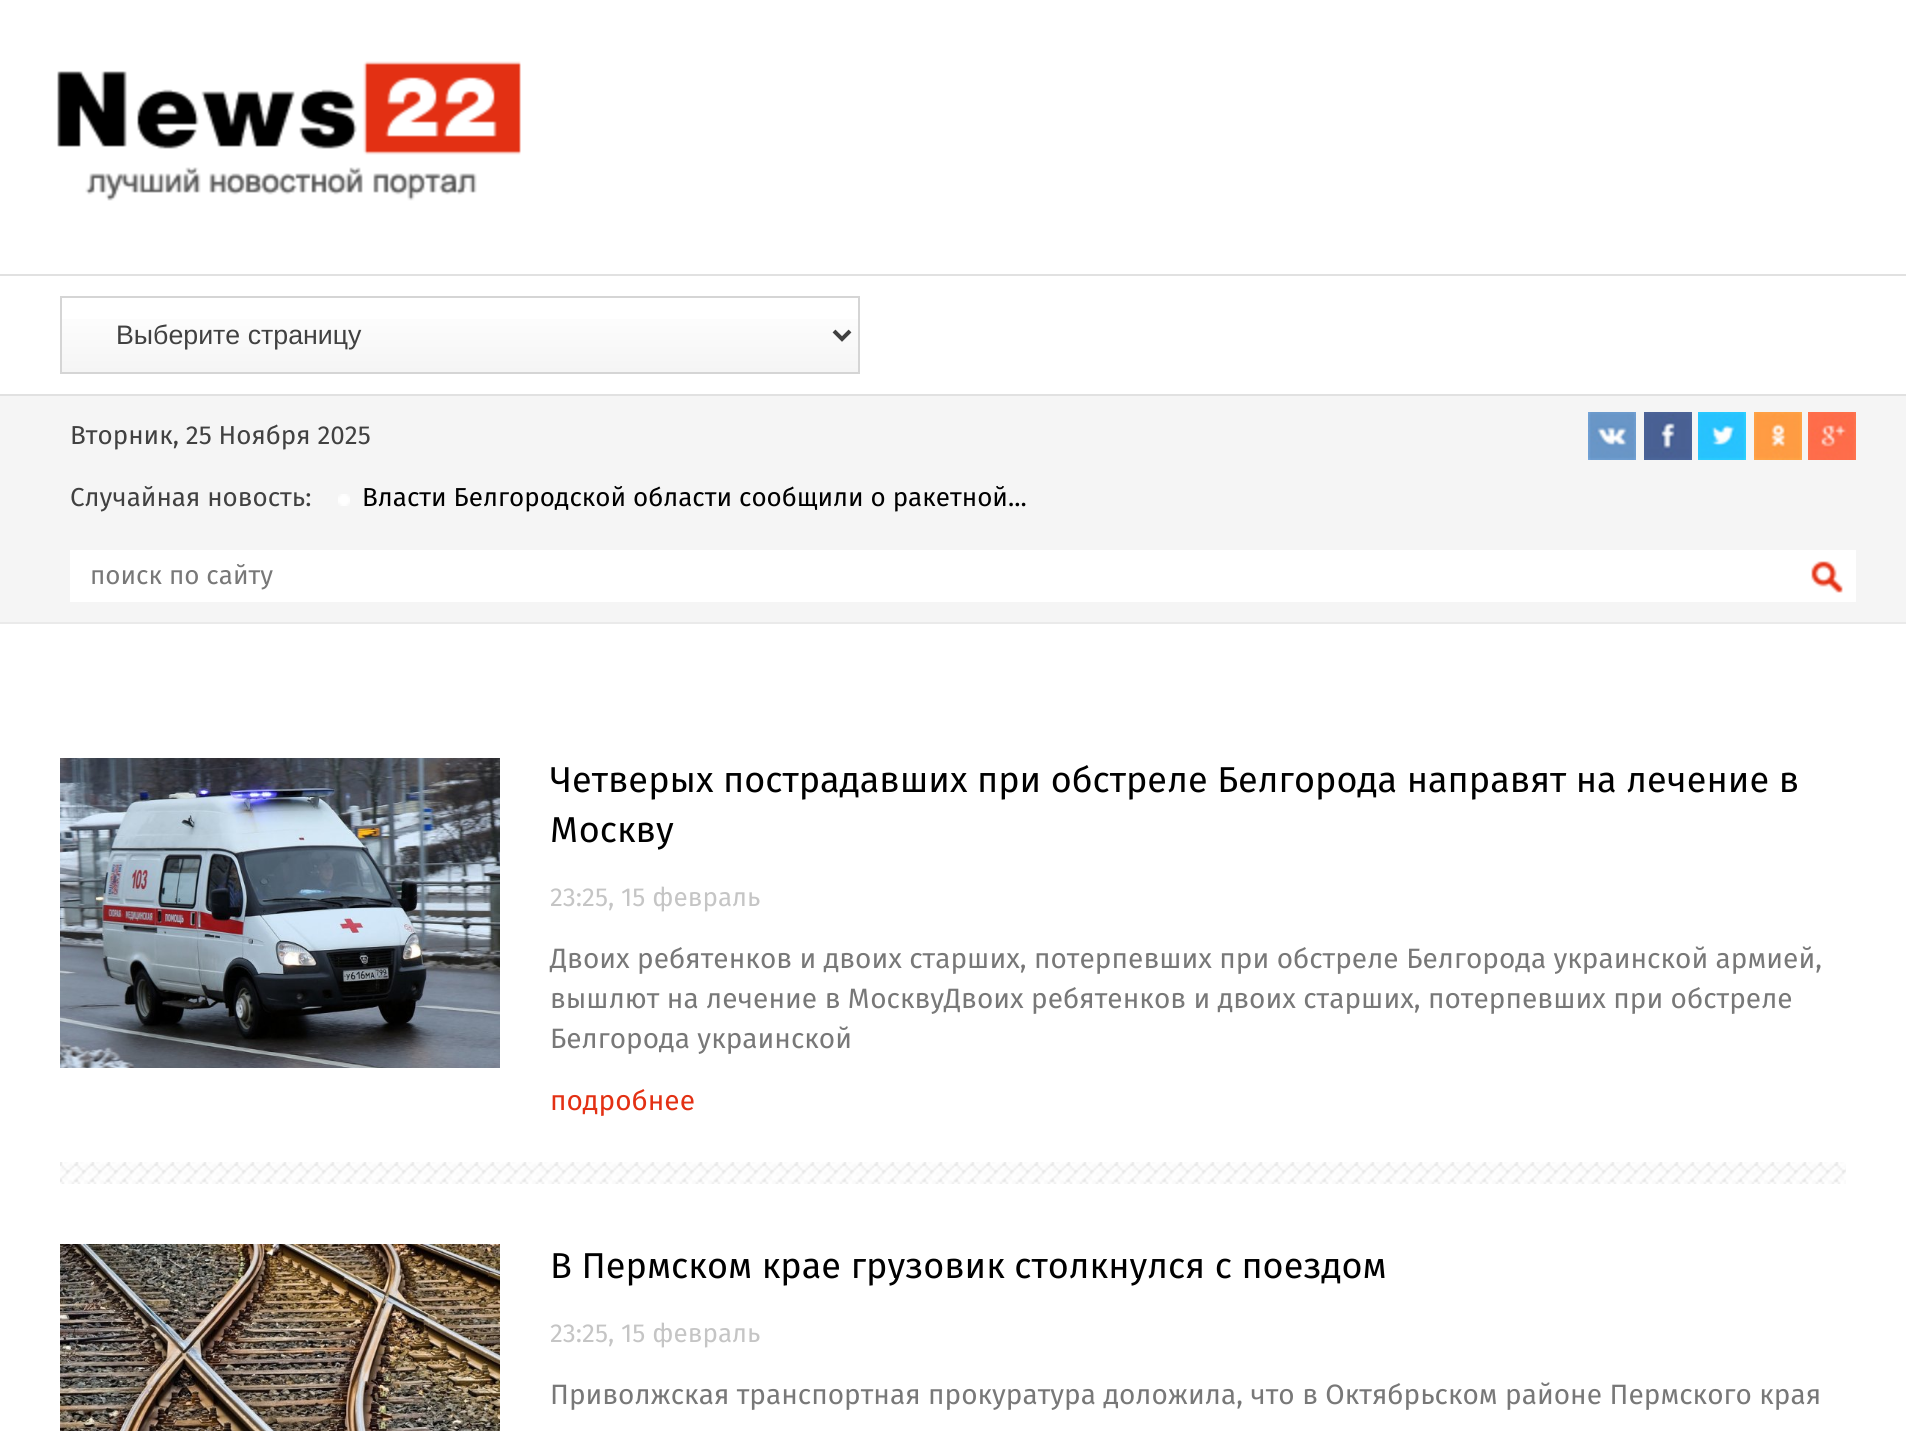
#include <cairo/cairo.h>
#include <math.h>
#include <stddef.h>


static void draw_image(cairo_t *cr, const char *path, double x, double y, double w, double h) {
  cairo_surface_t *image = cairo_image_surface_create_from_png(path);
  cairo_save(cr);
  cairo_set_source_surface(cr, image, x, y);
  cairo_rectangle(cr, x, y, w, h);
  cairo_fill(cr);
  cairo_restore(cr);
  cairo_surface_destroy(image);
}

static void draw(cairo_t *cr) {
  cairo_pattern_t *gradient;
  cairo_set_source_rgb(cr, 1, 1, 1);
  cairo_paint(cr);
  cairo_set_source_rgb(cr, 225 / 255.0, 225 / 255.0, 225 / 255.0);
  cairo_rectangle(cr, 0, 274, 1906, 2);
  cairo_fill(cr);
  draw_image(cr, "images/1.png", 57, 61, 464, 140);
  cairo_rectangle(cr, 0, 394, 1906, 2);
  cairo_fill(cr);
  gradient = cairo_pattern_create_linear(460, 298, 460, 372);
  cairo_pattern_add_color_stop_rgba(gradient, 0.05, 1, 1, 1, 1);
  cairo_pattern_add_color_stop_rgba(gradient, 1, 245 / 255.0, 245 / 255.0, 245 / 255.0, 1);
  cairo_set_source(cr, gradient);
  cairo_pattern_destroy(gradient);
  cairo_rectangle(cr, 62, 319, 796, 53);
  cairo_fill(cr);
  cairo_rectangle(cr, 61, 297, 798, 76);
  cairo_set_source_rgb(cr, 213 / 255.0, 213 / 255.0, 213 / 255.0);
  cairo_stroke(cr);
  cairo_new_path(cr);
  cairo_move_to(cr, 834, 331);
  cairo_line_to(cr, 842, 339);
  cairo_line_to(cr, 850, 331);
  cairo_set_source_rgb(cr, 65 / 255.0, 65 / 255.0, 65 / 255.0);
  cairo_set_line_width(cr, 4);
  cairo_stroke(cr);
  cairo_set_source_rgb(cr, 245 / 255.0, 245 / 255.0, 245 / 255.0);
  cairo_rectangle(cr, 0, 396, 1906, 226);
  cairo_fill(cr);
  cairo_set_source_rgb(cr, 234 / 255.0, 234 / 255.0, 234 / 255.0);
  cairo_rectangle(cr, 0, 622, 1906, 2);
  cairo_fill(cr);
  draw_image(cr, "images/2.png", 1588, 412, 48, 48);
  draw_image(cr, "images/3.png", 1644, 412, 48, 48);
  draw_image(cr, "images/4.png", 1698, 412, 48, 48);
  draw_image(cr, "images/5.png", 1754, 412, 48, 48);
  draw_image(cr, "images/6.png", 1808, 412, 48, 48);
  draw_image(cr, "images/7.png", 338, 494, 12, 12);
  cairo_set_source_rgb(cr, 1, 1, 1);
  cairo_rectangle(cr, 70, 550, 1786, 52);
  cairo_fill(cr);
  draw_image(cr, "images/8.png", 1811, 561, 32, 32);
  draw_image(cr, "images/9.png", 60, 1162, 1786, 22);
  draw_image(cr, "images/10.png", 60, 758, 440, 310);
  draw_image(cr, "images/11.png", 60, 1244, 440, 187);
  cairo_select_font_face(cr, "Liberation Sans", CAIRO_FONT_SLANT_NORMAL, CAIRO_FONT_WEIGHT_NORMAL);
  cairo_set_font_size(cr, 26.75);
  cairo_set_source_rgb(cr, 65 / 255.0, 65 / 255.0, 65 / 255.0);
  cairo_move_to(cr, 116, 344);
  cairo_show_text(cr, "Выберите страницу");
  cairo_select_font_face(cr, "Fira Sans", CAIRO_FONT_SLANT_NORMAL, CAIRO_FONT_WEIGHT_NORMAL);
  cairo_set_font_size(cr, 26);
  cairo_move_to(cr, 70, 444);
  cairo_show_text(cr, "Вторник, 25 Ноября 2025");
  cairo_move_to(cr, 70, 506);
  cairo_show_text(cr, "Случайная новость:");
  cairo_set_source_rgb(cr, 0, 0, 0);
  cairo_move_to(cr, 362, 506);
  cairo_show_text(cr, "Власти Белгородской области сообщили о ракетной...");
  cairo_set_source_rgb(cr, 120 / 255.0, 120 / 255.0, 120 / 255.0);
  cairo_move_to(cr, 90, 584);
  cairo_show_text(cr, "поиск по сайту");
  cairo_set_font_size(cr, 36);
  cairo_set_source_rgb(cr, 0, 0, 0);
  cairo_move_to(cr, 550, 792);
  cairo_show_text(cr, "Четверых пострадавших при обстреле Белгорода направят на лечение в");
  cairo_move_to(cr, 550, 842);
  cairo_show_text(cr, "Москву");
  cairo_set_font_size(cr, 26);
  cairo_set_source_rgb(cr, 197 / 255.0, 197 / 255.0, 197 / 255.0);
  cairo_move_to(cr, 550, 906);
  cairo_show_text(cr, "23:25, 15 февраль");
  cairo_set_font_size(cr, 28);
  cairo_set_source_rgb(cr, 120 / 255.0, 120 / 255.0, 120 / 255.0);
  cairo_move_to(cr, 550, 968);
  cairo_show_text(cr, "Двоих ребятенков и двоих старших, потерпевших при обстреле Белгорода украинской армией,");
  cairo_move_to(cr, 550, 1008);
  cairo_show_text(cr, "вышлют на лечение в МосквуДвоих ребятенков и двоих старших, потерпевших при обстреле");
  cairo_move_to(cr, 550, 1048);
  cairo_show_text(cr, "Белгорода украинской");
  cairo_set_source_rgb(cr, 227 / 255.0, 48 / 255.0, 19 / 255.0);
  cairo_move_to(cr, 550, 1110);
  cairo_show_text(cr, "подробнее");
  cairo_set_font_size(cr, 36);
  cairo_set_source_rgb(cr, 0, 0, 0);
  cairo_move_to(cr, 550, 1278);
  cairo_show_text(cr, "В Пермском крае грузовик столкнулся с поездом");
  cairo_set_font_size(cr, 26);
  cairo_set_source_rgb(cr, 197 / 255.0, 197 / 255.0, 197 / 255.0);
  cairo_move_to(cr, 550, 1342);
  cairo_show_text(cr, "23:25, 15 февраль");
  cairo_set_font_size(cr, 28);
  cairo_set_source_rgb(cr, 120 / 255.0, 120 / 255.0, 120 / 255.0);
  cairo_move_to(cr, 550, 1404);
  cairo_show_text(cr, "Приволжская транспортная прокуратура доложила, что в Октябрьском районе Пермского края");
}

int main(void) {
  cairo_surface_t *surface = cairo_image_surface_create(CAIRO_FORMAT_RGB24, 1906, 1431);
  cairo_t *cr = cairo_create(surface);
  cairo_font_options_t *options = cairo_font_options_create();
  cairo_font_options_set_hint_metrics(options, CAIRO_HINT_METRICS_OFF);
  cairo_font_options_set_hint_style(options, CAIRO_HINT_STYLE_NONE);
  cairo_set_font_options(cr, options);
  cairo_set_miter_limit(cr, 4);
  draw(cr);
  cairo_surface_write_to_png(surface, "out.png");
  cairo_font_options_destroy(options);
  cairo_destroy(cr);
  cairo_surface_destroy(surface);
  return 0;
}
